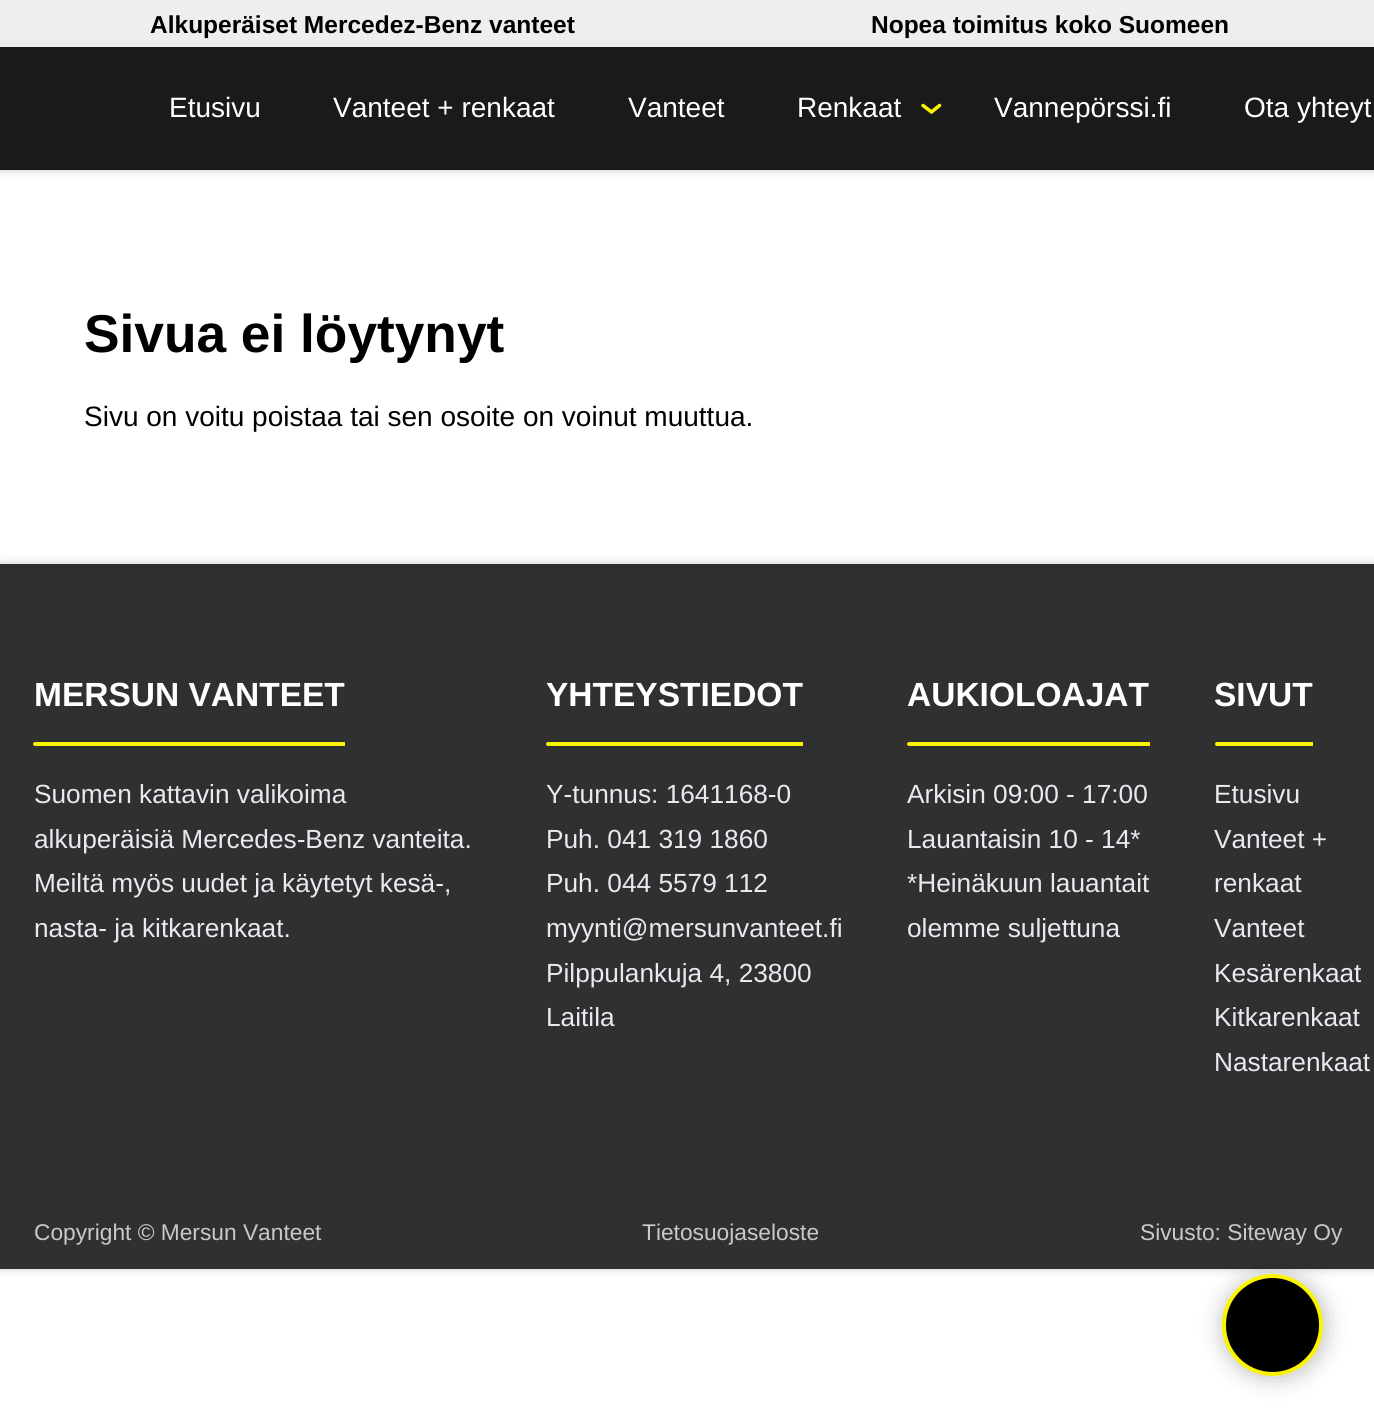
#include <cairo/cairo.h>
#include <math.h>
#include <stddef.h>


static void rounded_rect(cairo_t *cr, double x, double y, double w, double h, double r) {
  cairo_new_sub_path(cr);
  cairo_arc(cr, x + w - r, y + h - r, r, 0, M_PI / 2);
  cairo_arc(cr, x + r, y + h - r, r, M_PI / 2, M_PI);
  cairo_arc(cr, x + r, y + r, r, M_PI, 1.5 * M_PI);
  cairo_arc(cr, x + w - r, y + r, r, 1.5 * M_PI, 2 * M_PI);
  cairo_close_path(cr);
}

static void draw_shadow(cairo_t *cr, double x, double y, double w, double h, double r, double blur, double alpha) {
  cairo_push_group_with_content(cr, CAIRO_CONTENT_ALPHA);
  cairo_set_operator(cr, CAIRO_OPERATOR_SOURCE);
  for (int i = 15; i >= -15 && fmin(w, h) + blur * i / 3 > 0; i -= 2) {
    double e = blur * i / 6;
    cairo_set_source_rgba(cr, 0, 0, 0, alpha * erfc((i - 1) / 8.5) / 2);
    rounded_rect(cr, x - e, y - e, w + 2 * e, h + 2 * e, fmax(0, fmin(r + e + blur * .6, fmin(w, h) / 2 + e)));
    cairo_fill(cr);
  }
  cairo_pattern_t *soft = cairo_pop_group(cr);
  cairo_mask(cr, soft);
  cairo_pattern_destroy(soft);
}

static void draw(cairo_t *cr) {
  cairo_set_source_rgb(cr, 1, 1, 1);
  cairo_paint(cr);
  cairo_set_source_rgb(cr, 26 / 255.0, 26 / 255.0, 26 / 255.0);
  cairo_rectangle(cr, 0, 47, 1374, 123);
  cairo_fill(cr);
  cairo_set_source_rgb(cr, 238 / 255.0, 238 / 255.0, 238 / 255.0);
  cairo_rectangle(cr, 0, 0, 1374, 47);
  cairo_fill(cr);
  cairo_new_path(cr);
  cairo_move_to(cr, 923, 105.5);
  cairo_line_to(cr, 931.5, 112);
  cairo_line_to(cr, 939.5, 105.5);
  cairo_set_source_rgb(cr, 250 / 255.0, 244 / 255.0, 2 / 255.0);
  cairo_set_line_width(cr, 3.5);
  cairo_set_line_cap(cr, CAIRO_LINE_CAP_ROUND);
  cairo_stroke(cr);
  cairo_save(cr);
  cairo_set_fill_rule(cr, CAIRO_FILL_RULE_EVEN_ODD);
  cairo_new_path(cr);
  cairo_move_to(cr, 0, 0);
  cairo_line_to(cr, 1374, 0);
  cairo_line_to(cr, 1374, 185);
  cairo_line_to(cr, 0, 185);
  cairo_close_path(cr);
  cairo_move_to(cr, 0, 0);
  cairo_line_to(cr, 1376, 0);
  cairo_line_to(cr, 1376, 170);
  cairo_line_to(cr, 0, 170);
  cairo_close_path(cr);
  cairo_clip(cr);
  cairo_set_source_rgb(cr, 0, 0, 0);
  draw_shadow(cr, 0, 0, 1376, 170, 0, 4.5, 0.22);
  cairo_restore(cr);
  cairo_save(cr);
  cairo_set_fill_rule(cr, CAIRO_FILL_RULE_EVEN_ODD);
  cairo_new_path(cr);
  cairo_move_to(cr, 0, 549);
  cairo_line_to(cr, 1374, 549);
  cairo_line_to(cr, 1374, 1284);
  cairo_line_to(cr, 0, 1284);
  cairo_close_path(cr);
  cairo_move_to(cr, 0, 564);
  cairo_line_to(cr, 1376, 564);
  cairo_line_to(cr, 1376, 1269);
  cairo_line_to(cr, 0, 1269);
  cairo_close_path(cr);
  cairo_clip(cr);
  cairo_set_source_rgb(cr, 0, 0, 0);
  draw_shadow(cr, 0, 564, 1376, 705, 0, 4.5, 0.22);
  cairo_restore(cr);
  cairo_set_source_rgba(cr, 0, 0, 0, 0.81);
  cairo_rectangle(cr, 0, 564, 1374, 705);
  cairo_fill(cr);
  cairo_set_source_rgb(cr, 250 / 255.0, 244 / 255.0, 2 / 255.0);
  cairo_new_path(cr);
  cairo_move_to(cr, 35, 742);
  cairo_line_to(cr, 345, 742);
  cairo_line_to(cr, 345, 746);
  cairo_line_to(cr, 35, 746);
  cairo_curve_to(cr, 34, 746, 33, 745, 33, 744);
  cairo_curve_to(cr, 33, 743, 34, 742, 35, 742);
  cairo_close_path(cr);
  cairo_fill(cr);
  cairo_new_path(cr);
  cairo_move_to(cr, 548, 742);
  cairo_line_to(cr, 803, 742);
  cairo_line_to(cr, 803, 746);
  cairo_line_to(cr, 548, 746);
  cairo_curve_to(cr, 547, 746, 546, 745, 546, 744);
  cairo_curve_to(cr, 546, 743, 547, 742, 548, 742);
  cairo_close_path(cr);
  cairo_fill(cr);
  cairo_new_path(cr);
  cairo_move_to(cr, 909, 742);
  cairo_line_to(cr, 1150, 742);
  cairo_line_to(cr, 1150, 746);
  cairo_line_to(cr, 909, 746);
  cairo_curve_to(cr, 908, 746, 907, 745, 907, 744);
  cairo_curve_to(cr, 907, 743, 908, 742, 909, 742);
  cairo_close_path(cr);
  cairo_fill(cr);
  cairo_new_path(cr);
  cairo_move_to(cr, 1217, 742);
  cairo_line_to(cr, 1313, 742);
  cairo_line_to(cr, 1313, 746);
  cairo_line_to(cr, 1217, 746);
  cairo_curve_to(cr, 1216, 746, 1215, 745, 1215, 744);
  cairo_curve_to(cr, 1215, 743, 1216, 742, 1217, 742);
  cairo_close_path(cr);
  cairo_fill(cr);
  cairo_set_source_rgb(cr, 0, 0, 0);
  draw_shadow(cr, 1223, 1276, 102, 101, 50.5, 11.5, 0.27);
  cairo_set_source_rgb(cr, 0, 0, 0);
  rounded_rect(cr, 1224, 1276, 97, 98, 48.5);
  cairo_fill_preserve(cr);
  cairo_set_source_rgb(cr, 250 / 255.0, 244 / 255.0, 2 / 255.0);
  cairo_set_line_width(cr, 4);
  cairo_set_line_cap(cr, CAIRO_LINE_CAP_BUTT);
  cairo_stroke(cr);
  cairo_select_font_face(cr, "Liberation Sans", CAIRO_FONT_SLANT_NORMAL, CAIRO_FONT_WEIGHT_BOLD);
  cairo_set_font_size(cr, 24.5);
  cairo_set_source_rgb(cr, 0, 0, 0);
  cairo_move_to(cr, 150, 33);
  cairo_show_text(cr, "Alkuperäiset Mercedez-Benz vanteet");
  cairo_move_to(cr, 871, 33);
  cairo_show_text(cr, "Nopea toimitus koko Suomeen");
  cairo_select_font_face(cr, "Liberation Sans", CAIRO_FONT_SLANT_NORMAL, CAIRO_FONT_WEIGHT_NORMAL);
  cairo_set_font_size(cr, 28);
  cairo_set_source_rgb(cr, 1, 1, 1);
  cairo_move_to(cr, 169, 117);
  cairo_show_text(cr, "Etusivu");
  cairo_move_to(cr, 333, 117);
  cairo_show_text(cr, "Vanteet + renkaat");
  cairo_move_to(cr, 628, 117);
  cairo_show_text(cr, "Vanteet");
  cairo_move_to(cr, 797, 117);
  cairo_show_text(cr, "Renkaat");
  cairo_move_to(cr, 994, 117);
  cairo_show_text(cr, "Vannepörssi.fi");
  cairo_move_to(cr, 1244, 117);
  cairo_show_text(cr, "Ota yhteyt");
  cairo_select_font_face(cr, "Liberation Sans", CAIRO_FONT_SLANT_NORMAL, CAIRO_FONT_WEIGHT_BOLD);
  cairo_set_font_size(cr, 53.25);
  cairo_set_source_rgb(cr, 0, 0, 0);
  cairo_move_to(cr, 84, 352);
  cairo_show_text(cr, "Sivua ei löytynyt");
  cairo_select_font_face(cr, "Liberation Sans", CAIRO_FONT_SLANT_NORMAL, CAIRO_FONT_WEIGHT_NORMAL);
  cairo_set_font_size(cr, 28);
  cairo_move_to(cr, 84, 426);
  cairo_show_text(cr, "Sivu on voitu poistaa tai sen osoite on voinut muuttua.");
  cairo_select_font_face(cr, "Liberation Sans", CAIRO_FONT_SLANT_NORMAL, CAIRO_FONT_WEIGHT_BOLD);
  cairo_set_font_size(cr, 33.5);
  cairo_set_source_rgb(cr, 1, 1, 1);
  cairo_move_to(cr, 34, 706);
  cairo_show_text(cr, "MERSUN VANTEET");
  cairo_select_font_face(cr, "Liberation Sans", CAIRO_FONT_SLANT_NORMAL, CAIRO_FONT_WEIGHT_NORMAL);
  cairo_set_font_size(cr, 26.25);
  cairo_set_source_rgb(cr, 233 / 255.0, 234 / 255.0, 241 / 255.0);
  cairo_move_to(cr, 34, 803);
  cairo_show_text(cr, "Suomen kattavin valikoima");
  cairo_move_to(cr, 34, 848);
  cairo_show_text(cr, "alkuperäisiä Mercedes-Benz vanteita.");
  cairo_move_to(cr, 34, 892);
  cairo_show_text(cr, "Meiltä myös uudet ja käytetyt kesä-,");
  cairo_move_to(cr, 34, 937);
  cairo_show_text(cr, "nasta- ja kitkarenkaat.");
  cairo_select_font_face(cr, "Liberation Sans", CAIRO_FONT_SLANT_NORMAL, CAIRO_FONT_WEIGHT_BOLD);
  cairo_set_font_size(cr, 33.5);
  cairo_set_source_rgb(cr, 1, 1, 1);
  cairo_move_to(cr, 546, 706);
  cairo_show_text(cr, "YHTEYSTIEDOT");
  cairo_select_font_face(cr, "Liberation Sans", CAIRO_FONT_SLANT_NORMAL, CAIRO_FONT_WEIGHT_NORMAL);
  cairo_set_font_size(cr, 26.25);
  cairo_set_source_rgb(cr, 233 / 255.0, 234 / 255.0, 241 / 255.0);
  cairo_move_to(cr, 546, 803);
  cairo_show_text(cr, "Y-tunnus: 1641168-0");
  cairo_move_to(cr, 546, 848);
  cairo_show_text(cr, "Puh. 041 319 1860");
  cairo_move_to(cr, 546, 892);
  cairo_show_text(cr, "Puh. 044 5579 112");
  cairo_move_to(cr, 546, 937);
  cairo_show_text(cr, "myynti@mersunvanteet.fi");
  cairo_move_to(cr, 546, 982);
  cairo_show_text(cr, "Pilppulankuja 4, 23800");
  cairo_move_to(cr, 546, 1026);
  cairo_show_text(cr, "Laitila");
  cairo_select_font_face(cr, "Liberation Sans", CAIRO_FONT_SLANT_NORMAL, CAIRO_FONT_WEIGHT_BOLD);
  cairo_set_font_size(cr, 33.5);
  cairo_set_source_rgb(cr, 1, 1, 1);
  cairo_move_to(cr, 907, 706);
  cairo_show_text(cr, "AUKIOLOAJAT");
  cairo_select_font_face(cr, "Liberation Sans", CAIRO_FONT_SLANT_NORMAL, CAIRO_FONT_WEIGHT_NORMAL);
  cairo_set_font_size(cr, 26.25);
  cairo_set_source_rgb(cr, 233 / 255.0, 234 / 255.0, 241 / 255.0);
  cairo_move_to(cr, 907, 803);
  cairo_show_text(cr, "Arkisin 09:00 - 17:00");
  cairo_move_to(cr, 907, 848);
  cairo_show_text(cr, "Lauantaisin 10 - 14*");
  cairo_move_to(cr, 907, 892);
  cairo_show_text(cr, "*Heinäkuun lauantait");
  cairo_move_to(cr, 907, 937);
  cairo_show_text(cr, "olemme suljettuna");
  cairo_select_font_face(cr, "Liberation Sans", CAIRO_FONT_SLANT_NORMAL, CAIRO_FONT_WEIGHT_BOLD);
  cairo_set_font_size(cr, 33.5);
  cairo_set_source_rgb(cr, 1, 1, 1);
  cairo_move_to(cr, 1214, 706);
  cairo_show_text(cr, "SIVUT");
  cairo_select_font_face(cr, "Liberation Sans", CAIRO_FONT_SLANT_NORMAL, CAIRO_FONT_WEIGHT_NORMAL);
  cairo_set_font_size(cr, 26.25);
  cairo_set_source_rgb(cr, 233 / 255.0, 234 / 255.0, 241 / 255.0);
  cairo_move_to(cr, 1214, 803);
  cairo_show_text(cr, "Etusivu");
  cairo_move_to(cr, 1214, 848);
  cairo_show_text(cr, "Vanteet +");
  cairo_move_to(cr, 1214, 892);
  cairo_show_text(cr, "renkaat");
  cairo_move_to(cr, 1214, 937);
  cairo_show_text(cr, "Vanteet");
  cairo_move_to(cr, 1214, 982);
  cairo_show_text(cr, "Kesärenkaat");
  cairo_move_to(cr, 1214, 1026);
  cairo_show_text(cr, "Kitkarenkaat");
  cairo_move_to(cr, 1214, 1071);
  cairo_show_text(cr, "Nastarenkaat");
  cairo_set_font_size(cr, 22.75);
  cairo_set_source_rgb(cr, 201 / 255.0, 201 / 255.0, 201 / 255.0);
  cairo_move_to(cr, 34, 1240);
  cairo_show_text(cr, "Copyright © Mersun Vanteet");
  cairo_move_to(cr, 642, 1240);
  cairo_show_text(cr, "Tietosuojaseloste");
  cairo_move_to(cr, 1140, 1240);
  cairo_show_text(cr, "Sivusto: Siteway Oy");
}

int main(void) {
  cairo_surface_t *surface = cairo_image_surface_create(CAIRO_FORMAT_RGB24, 1374, 1427);
  cairo_t *cr = cairo_create(surface);
  cairo_font_options_t *options = cairo_font_options_create();
  cairo_font_options_set_hint_metrics(options, CAIRO_HINT_METRICS_OFF);
  cairo_font_options_set_hint_style(options, CAIRO_HINT_STYLE_NONE);
  cairo_set_font_options(cr, options);
  cairo_set_miter_limit(cr, 4);
  draw(cr);
  cairo_surface_write_to_png(surface, "out.png");
  cairo_font_options_destroy(options);
  cairo_destroy(cr);
  cairo_surface_destroy(surface);
  return 0;
}
